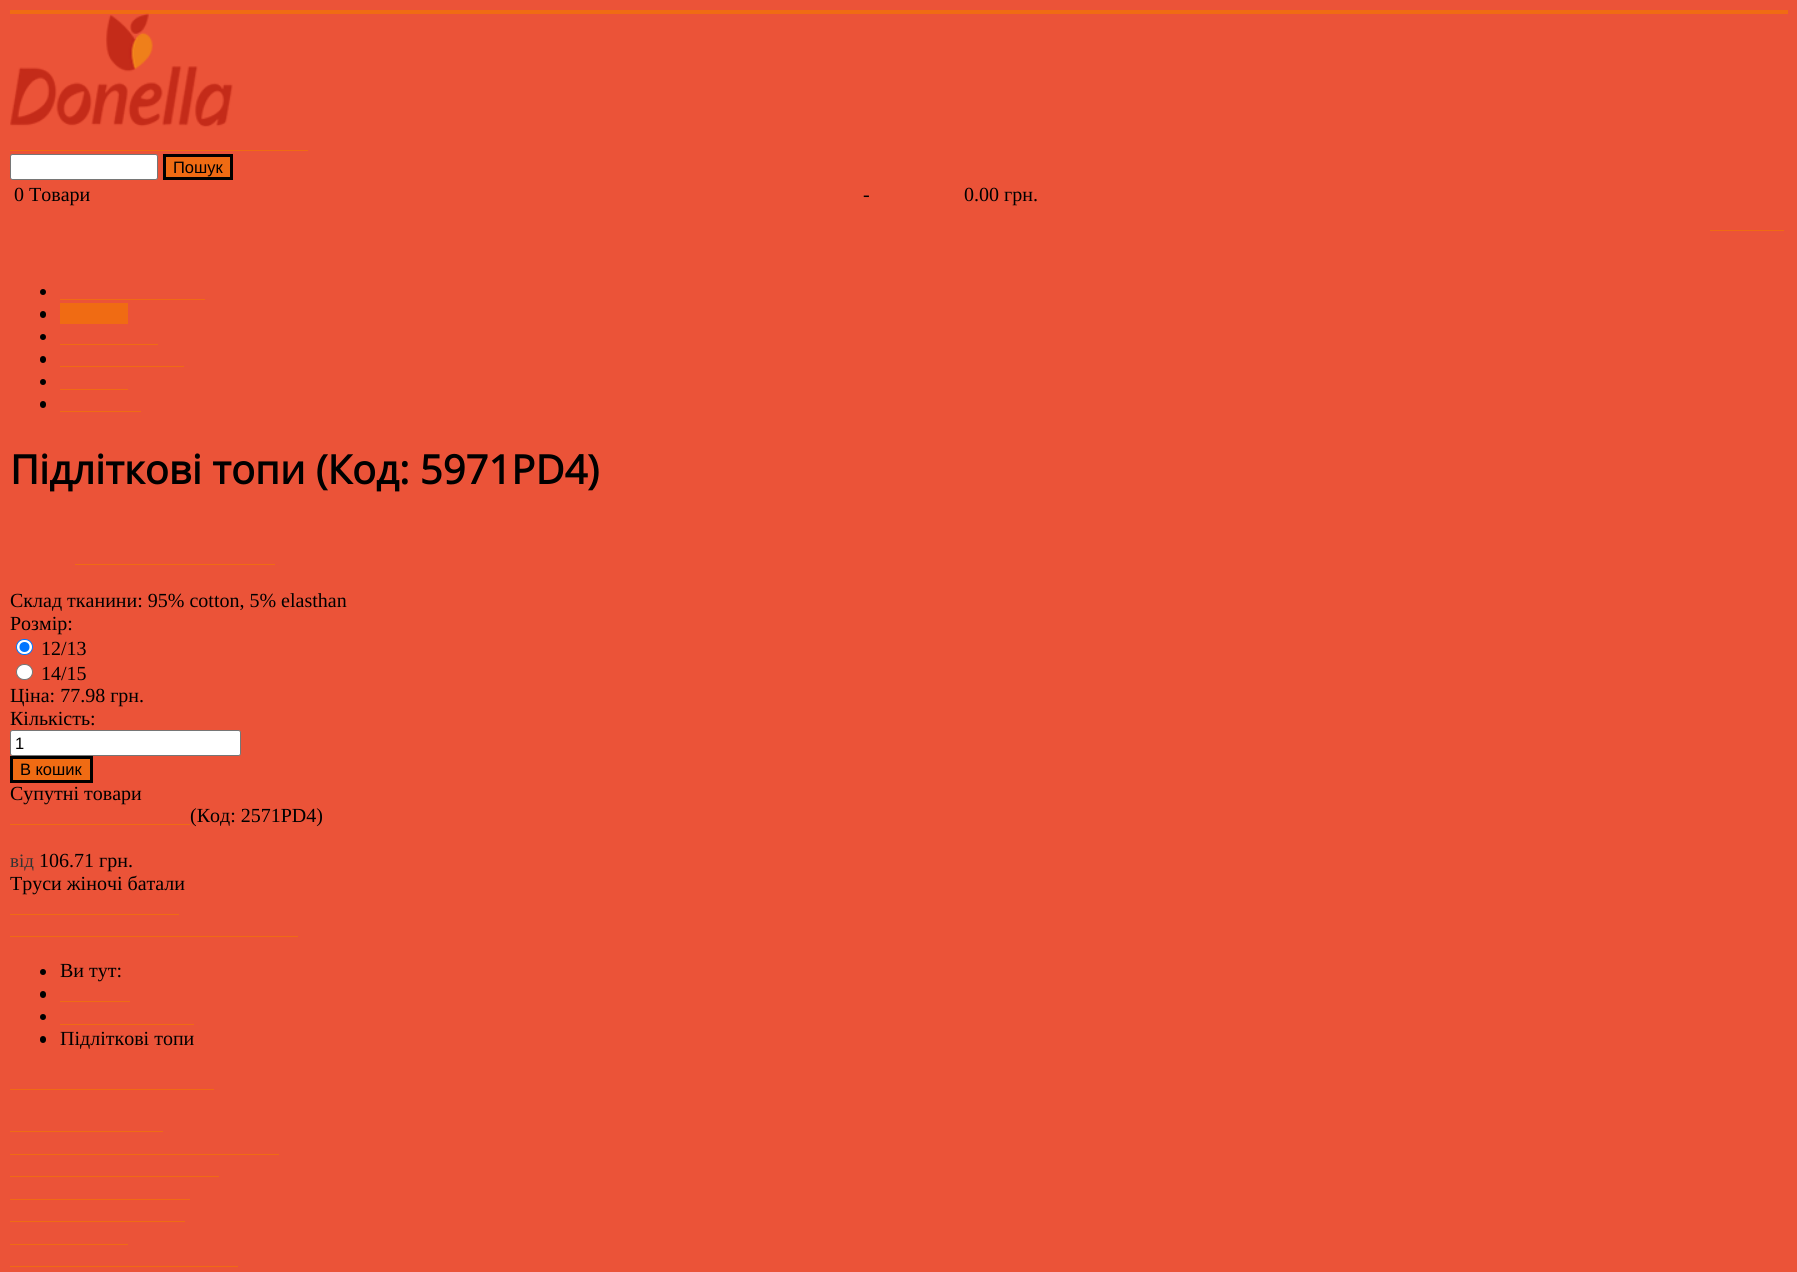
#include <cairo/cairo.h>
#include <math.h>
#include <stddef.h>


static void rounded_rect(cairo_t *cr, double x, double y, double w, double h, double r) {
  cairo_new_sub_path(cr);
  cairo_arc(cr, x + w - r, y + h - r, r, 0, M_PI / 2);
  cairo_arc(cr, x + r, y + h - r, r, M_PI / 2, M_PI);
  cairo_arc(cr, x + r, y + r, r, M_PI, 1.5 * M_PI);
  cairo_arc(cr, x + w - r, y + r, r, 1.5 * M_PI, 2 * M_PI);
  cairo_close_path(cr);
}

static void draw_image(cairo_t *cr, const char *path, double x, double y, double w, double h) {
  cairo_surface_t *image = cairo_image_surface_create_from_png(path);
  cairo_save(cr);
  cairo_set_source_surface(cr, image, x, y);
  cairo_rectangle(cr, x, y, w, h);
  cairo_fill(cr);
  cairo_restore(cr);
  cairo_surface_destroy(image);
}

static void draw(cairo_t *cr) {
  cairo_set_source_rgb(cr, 235 / 255.0, 83 / 255.0, 56 / 255.0);
  cairo_paint(cr);
  cairo_set_source_rgb(cr, 240 / 255.0, 107 / 255.0, 19 / 255.0);
  cairo_rectangle(cr, 10, 10, 1778, 4);
  cairo_fill(cr);
  draw_image(cr, "images/1.png", 10, 13, 223, 114);
  cairo_rectangle(cr, 10, 150, 298, 1);
  cairo_fill(cr);
  cairo_set_source_rgb(cr, 1, 1, 1);
  rounded_rect(cr, 10.5, 154.5, 147, 25, 2);
  cairo_fill_preserve(cr);
  cairo_set_source_rgb(cr, 118 / 255.0, 118 / 255.0, 118 / 255.0);
  cairo_set_line_width(cr, 1);
  cairo_stroke(cr);
  cairo_set_source_rgb(cr, 240 / 255.0, 107 / 255.0, 19 / 255.0);
  cairo_rectangle(cr, 164.5, 155.5, 67, 23);
  cairo_fill_preserve(cr);
  cairo_set_source_rgb(cr, 0, 0, 0);
  cairo_set_line_width(cr, 3);
  cairo_stroke(cr);
  cairo_set_source_rgb(cr, 240 / 255.0, 107 / 255.0, 19 / 255.0);
  cairo_rectangle(cr, 1710, 230, 74, 1);
  cairo_fill(cr);
  cairo_set_source_rgb(cr, 0, 0, 0);
  cairo_arc(cr, 43, 292, 3, 0, 2 * M_PI);
  cairo_fill(cr);
  cairo_set_source_rgb(cr, 240 / 255.0, 107 / 255.0, 19 / 255.0);
  cairo_rectangle(cr, 60, 299, 145, 1);
  cairo_fill(cr);
  cairo_set_source_rgb(cr, 0, 0, 0);
  rounded_rect(cr, 40, 311, 6, 7, 3);
  cairo_fill(cr);
  cairo_set_source_rgb(cr, 240 / 255.0, 107 / 255.0, 19 / 255.0);
  cairo_rectangle(cr, 60, 303, 68, 21);
  cairo_fill(cr);
  cairo_set_source_rgb(cr, 0, 0, 0);
  cairo_arc(cr, 43, 337, 3, 0, 2 * M_PI);
  cairo_fill(cr);
  cairo_set_source_rgb(cr, 240 / 255.0, 107 / 255.0, 19 / 255.0);
  cairo_rectangle(cr, 60, 344, 98, 1);
  cairo_fill(cr);
  cairo_set_source_rgb(cr, 0, 0, 0);
  rounded_rect(cr, 40, 356, 6, 7, 3);
  cairo_fill(cr);
  cairo_set_source_rgb(cr, 240 / 255.0, 107 / 255.0, 19 / 255.0);
  cairo_rectangle(cr, 60, 366, 124, 1);
  cairo_fill(cr);
  cairo_set_source_rgb(cr, 0, 0, 0);
  cairo_arc(cr, 43, 382, 3, 0, 2 * M_PI);
  cairo_fill(cr);
  cairo_set_source_rgb(cr, 240 / 255.0, 107 / 255.0, 19 / 255.0);
  cairo_rectangle(cr, 60, 389, 68, 1);
  cairo_fill(cr);
  cairo_set_source_rgb(cr, 0, 0, 0);
  rounded_rect(cr, 40, 401, 6, 7, 3);
  cairo_fill(cr);
  cairo_set_source_rgb(cr, 240 / 255.0, 107 / 255.0, 19 / 255.0);
  cairo_rectangle(cr, 60, 411, 81, 1);
  cairo_fill(cr);
  cairo_rectangle(cr, 75, 564, 200, 1);
  cairo_fill(cr);
  cairo_set_source_rgb(cr, 1, 1, 1);
  rounded_rect(cr, 16.5, 639.5, 16, 15, 7.5);
  cairo_fill_preserve(cr);
  cairo_set_source_rgb(cr, 0, 117 / 255.0, 1);
  cairo_set_line_width(cr, 1);
  cairo_stroke(cr);
  cairo_arc(cr, 24.5, 647, 5, 0, 2 * M_PI);
  cairo_fill(cr);
  cairo_set_source_rgb(cr, 1, 1, 1);
  rounded_rect(cr, 16.5, 664.5, 16, 15, 7.5);
  cairo_fill_preserve(cr);
  cairo_set_source_rgb(cr, 118 / 255.0, 118 / 255.0, 118 / 255.0);
  cairo_stroke(cr);
  cairo_set_source_rgb(cr, 1, 1, 1);
  rounded_rect(cr, 10.5, 730.5, 230, 25, 2);
  cairo_fill_preserve(cr);
  cairo_set_source_rgb(cr, 118 / 255.0, 118 / 255.0, 118 / 255.0);
  cairo_stroke(cr);
  cairo_set_source_rgb(cr, 240 / 255.0, 107 / 255.0, 19 / 255.0);
  cairo_rectangle(cr, 11.5, 757.5, 80, 24);
  cairo_fill_preserve(cr);
  cairo_set_source_rgb(cr, 0, 0, 0);
  cairo_set_line_width(cr, 3);
  cairo_stroke(cr);
  cairo_set_source_rgb(cr, 240 / 255.0, 107 / 255.0, 19 / 255.0);
  cairo_rectangle(cr, 10, 824, 180, 1);
  cairo_fill(cr);
  cairo_rectangle(cr, 10, 914, 169, 1);
  cairo_fill(cr);
  cairo_rectangle(cr, 10, 936, 288, 1);
  cairo_fill(cr);
  cairo_set_source_rgb(cr, 0, 0, 0);
  cairo_arc(cr, 43, 972, 3, 0, 2 * M_PI);
  cairo_fill(cr);
  rounded_rect(cr, 40, 991, 6, 7, 3);
  cairo_fill(cr);
  cairo_set_source_rgb(cr, 240 / 255.0, 107 / 255.0, 19 / 255.0);
  cairo_rectangle(cr, 60, 1001, 70, 1);
  cairo_fill(cr);
  cairo_set_source_rgb(cr, 0, 0, 0);
  cairo_arc(cr, 43, 1017, 3, 0, 2 * M_PI);
  cairo_fill(cr);
  cairo_set_source_rgb(cr, 240 / 255.0, 107 / 255.0, 19 / 255.0);
  cairo_rectangle(cr, 60, 1024, 134, 1);
  cairo_fill(cr);
  cairo_set_source_rgb(cr, 0, 0, 0);
  rounded_rect(cr, 40, 1036, 6, 7, 3);
  cairo_fill(cr);
  cairo_set_source_rgb(cr, 240 / 255.0, 107 / 255.0, 19 / 255.0);
  cairo_rectangle(cr, 10, 1089, 204, 1);
  cairo_fill(cr);
  cairo_rectangle(cr, 10, 1131, 153, 1);
  cairo_fill(cr);
  cairo_rectangle(cr, 10, 1154, 269, 1);
  cairo_fill(cr);
  cairo_rectangle(cr, 10, 1176, 209, 1);
  cairo_fill(cr);
  cairo_rectangle(cr, 10, 1199, 180, 1);
  cairo_fill(cr);
  cairo_rectangle(cr, 10, 1221, 175, 1);
  cairo_fill(cr);
  cairo_rectangle(cr, 10, 1244, 118, 1);
  cairo_fill(cr);
  cairo_rectangle(cr, 10, 1266, 228, 1);
  cairo_fill(cr);
  cairo_select_font_face(cr, "Liberation Sans", CAIRO_FONT_SLANT_NORMAL, CAIRO_FONT_WEIGHT_NORMAL);
  cairo_set_font_size(cr, 16.5);
  cairo_set_source_rgb(cr, 0, 0, 0);
  cairo_move_to(cr, 173, 173);
  cairo_show_text(cr, "Пошук");
  cairo_select_font_face(cr, "Liberation Serif", CAIRO_FONT_SLANT_NORMAL, CAIRO_FONT_WEIGHT_NORMAL);
  cairo_set_font_size(cr, 20);
  cairo_move_to(cr, 14, 201);
  cairo_show_text(cr, "0 Товари");
  cairo_move_to(cr, 863, 201);
  cairo_show_text(cr, "-");
  cairo_move_to(cr, 964, 201);
  cairo_show_text(cr, "0.00 грн.");
  cairo_select_font_face(cr, "Open Sans", CAIRO_FONT_SLANT_NORMAL, CAIRO_FONT_WEIGHT_BOLD);
  cairo_set_font_size(cr, 40);
  cairo_move_to(cr, 10, 484);
  cairo_show_text(cr, "Підліткові топи (Код: 5971PD4)");
  cairo_select_font_face(cr, "Liberation Serif", CAIRO_FONT_SLANT_NORMAL, CAIRO_FONT_WEIGHT_NORMAL);
  cairo_set_font_size(cr, 20);
  cairo_move_to(cr, 10, 607);
  cairo_show_text(cr, "Склад тканини: 95% cotton, 5% elasthan");
  cairo_move_to(cr, 10, 630);
  cairo_show_text(cr, "Розмір:");
  cairo_move_to(cr, 41, 655);
  cairo_show_text(cr, "12/13");
  cairo_move_to(cr, 41, 680);
  cairo_show_text(cr, "14/15");
  cairo_move_to(cr, 10, 702);
  cairo_show_text(cr, "Ціна: 77.98 грн.");
  cairo_move_to(cr, 10, 725);
  cairo_show_text(cr, "Кількість:");
  cairo_select_font_face(cr, "Liberation Sans", CAIRO_FONT_SLANT_NORMAL, CAIRO_FONT_WEIGHT_NORMAL);
  cairo_set_font_size(cr, 16.5);
  cairo_move_to(cr, 15, 749);
  cairo_show_text(cr, "1");
  cairo_move_to(cr, 20, 775);
  cairo_show_text(cr, "В кошик");
  cairo_select_font_face(cr, "Liberation Serif", CAIRO_FONT_SLANT_NORMAL, CAIRO_FONT_WEIGHT_NORMAL);
  cairo_set_font_size(cr, 20);
  cairo_move_to(cr, 10, 800);
  cairo_show_text(cr, "Супутні товари");
  cairo_move_to(cr, 190, 822);
  cairo_show_text(cr, "(Код: 2571PD4)");
  cairo_set_font_size(cr, 19);
  cairo_set_source_rgb(cr, 51 / 255.0, 51 / 255.0, 51 / 255.0);
  cairo_move_to(cr, 10, 867);
  cairo_show_text(cr, "від");
  cairo_set_font_size(cr, 20);
  cairo_set_source_rgb(cr, 0, 0, 0);
  cairo_move_to(cr, 39, 867);
  cairo_show_text(cr, "106.71 грн.");
  cairo_move_to(cr, 10, 890);
  cairo_show_text(cr, "Труси жіночі батали");
  cairo_move_to(cr, 60, 977);
  cairo_show_text(cr, "Ви тут:");
  cairo_move_to(cr, 60, 1045);
  cairo_show_text(cr, "Підліткові топи");
}

int main(void) {
  cairo_surface_t *surface = cairo_image_surface_create(CAIRO_FORMAT_RGB24, 1797, 1272);
  cairo_t *cr = cairo_create(surface);
  cairo_font_options_t *options = cairo_font_options_create();
  cairo_font_options_set_hint_metrics(options, CAIRO_HINT_METRICS_OFF);
  cairo_font_options_set_hint_style(options, CAIRO_HINT_STYLE_NONE);
  cairo_set_font_options(cr, options);
  cairo_set_miter_limit(cr, 4);
  draw(cr);
  cairo_surface_write_to_png(surface, "out.png");
  cairo_font_options_destroy(options);
  cairo_destroy(cr);
  cairo_surface_destroy(surface);
  return 0;
}
